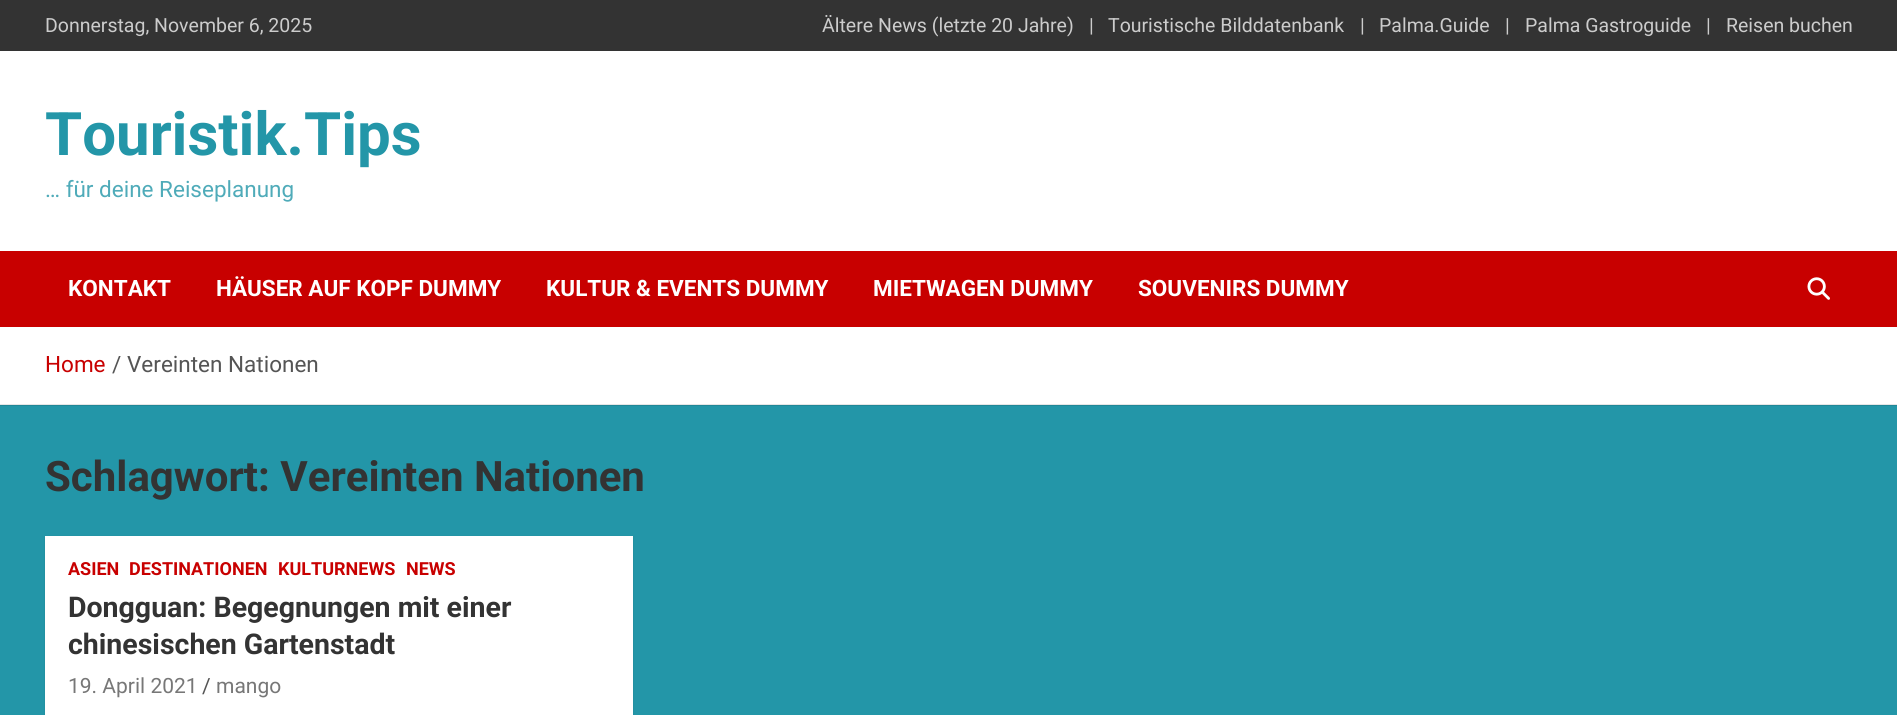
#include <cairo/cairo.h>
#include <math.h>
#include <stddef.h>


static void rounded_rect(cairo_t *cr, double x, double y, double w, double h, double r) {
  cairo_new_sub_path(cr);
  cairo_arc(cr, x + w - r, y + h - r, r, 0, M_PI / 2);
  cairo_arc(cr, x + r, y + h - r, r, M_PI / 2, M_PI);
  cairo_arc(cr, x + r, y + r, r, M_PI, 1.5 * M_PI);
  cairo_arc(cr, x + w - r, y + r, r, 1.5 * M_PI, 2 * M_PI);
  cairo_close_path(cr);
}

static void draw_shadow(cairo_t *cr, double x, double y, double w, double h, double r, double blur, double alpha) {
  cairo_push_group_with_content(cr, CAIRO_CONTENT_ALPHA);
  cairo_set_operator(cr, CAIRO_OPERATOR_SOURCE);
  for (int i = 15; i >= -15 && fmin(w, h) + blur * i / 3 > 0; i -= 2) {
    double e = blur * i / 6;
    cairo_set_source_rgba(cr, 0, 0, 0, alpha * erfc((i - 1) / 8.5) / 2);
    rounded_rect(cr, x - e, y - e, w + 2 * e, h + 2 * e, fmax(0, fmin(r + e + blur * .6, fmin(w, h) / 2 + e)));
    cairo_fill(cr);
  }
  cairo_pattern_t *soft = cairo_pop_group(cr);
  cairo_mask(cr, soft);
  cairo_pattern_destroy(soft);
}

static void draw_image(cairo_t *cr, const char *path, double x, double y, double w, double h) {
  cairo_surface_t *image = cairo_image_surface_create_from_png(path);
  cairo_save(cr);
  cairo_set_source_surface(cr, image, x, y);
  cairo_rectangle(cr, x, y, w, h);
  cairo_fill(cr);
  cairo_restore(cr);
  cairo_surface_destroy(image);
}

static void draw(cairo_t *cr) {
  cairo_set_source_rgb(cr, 35 / 255.0, 150 / 255.0, 168 / 255.0);
  cairo_paint(cr);
  cairo_set_source_rgb(cr, 32 / 255.0, 135 / 255.0, 151 / 255.0);
  cairo_rectangle(cr, 0, 405, 1897, 1);
  cairo_fill(cr);
  cairo_set_source_rgb(cr, 51 / 255.0, 51 / 255.0, 51 / 255.0);
  cairo_rectangle(cr, 0, 0, 1897, 51);
  cairo_fill(cr);
  cairo_set_source_rgb(cr, 1, 1, 1);
  cairo_rectangle(cr, 0, 51, 1897, 200);
  cairo_fill(cr);
  cairo_set_source_rgb(cr, 200 / 255.0, 0, 0);
  cairo_rectangle(cr, 0, 251, 1897, 76);
  cairo_fill(cr);
  draw_image(cr, "images/1.png", 1807, 277, 23, 23);
  cairo_set_source_rgb(cr, 1, 1, 1);
  cairo_rectangle(cr, 0, 327, 1897, 77);
  cairo_fill(cr);
  cairo_set_source_rgb(cr, 230 / 255.0, 230 / 255.0, 230 / 255.0);
  cairo_rectangle(cr, 0, 404, 1897, 1);
  cairo_fill(cr);
  cairo_set_source_rgb(cr, 0, 0, 0);
  draw_shadow(cr, 45, 537, 588, 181, 0, 1, 0.1);
  cairo_set_source_rgb(cr, 1, 1, 1);
  cairo_rectangle(cr, 45, 536, 588, 179);
  cairo_fill(cr);
  cairo_select_font_face(cr, "Roboto", CAIRO_FONT_SLANT_NORMAL, CAIRO_FONT_WEIGHT_NORMAL);
  cairo_set_font_size(cr, 19.5);
  cairo_set_source_rgb(cr, 204 / 255.0, 204 / 255.0, 204 / 255.0);
  cairo_move_to(cr, 45, 32);
  cairo_show_text(cr, "Donnerstag, November 6, 2025");
  cairo_move_to(cr, 822, 32);
  cairo_show_text(cr, "Ältere News (letzte 20 Jahre)");
  cairo_move_to(cr, 1089, 32);
  cairo_show_text(cr, "|");
  cairo_move_to(cr, 1108, 32);
  cairo_show_text(cr, "Touristische Bilddatenbank");
  cairo_move_to(cr, 1360, 32);
  cairo_show_text(cr, "|");
  cairo_move_to(cr, 1379, 32);
  cairo_show_text(cr, "Palma.Guide");
  cairo_move_to(cr, 1505, 32);
  cairo_show_text(cr, "|");
  cairo_move_to(cr, 1525, 32);
  cairo_show_text(cr, "Palma Gastroguide");
  cairo_move_to(cr, 1706, 32);
  cairo_show_text(cr, "|");
  cairo_move_to(cr, 1726, 32);
  cairo_show_text(cr, "Reisen buchen");
  cairo_select_font_face(cr, "Roboto", CAIRO_FONT_SLANT_NORMAL, CAIRO_FONT_WEIGHT_BOLD);
  cairo_set_font_size(cr, 60);
  cairo_set_source_rgb(cr, 35 / 255.0, 150 / 255.0, 168 / 255.0);
  cairo_move_to(cr, 45, 155);
  cairo_show_text(cr, "Touristik.Tips");
  cairo_select_font_face(cr, "Roboto", CAIRO_FONT_SLANT_NORMAL, CAIRO_FONT_WEIGHT_NORMAL);
  cairo_set_font_size(cr, 22.5);
  cairo_set_source_rgb(cr, 79 / 255.0, 171 / 255.0, 185 / 255.0);
  cairo_move_to(cr, 45, 197);
  cairo_show_text(cr, "… für deine Reiseplanung");
  cairo_select_font_face(cr, "Roboto", CAIRO_FONT_SLANT_NORMAL, CAIRO_FONT_WEIGHT_BOLD);
  cairo_set_source_rgb(cr, 1, 1, 1);
  cairo_move_to(cr, 68, 296);
  cairo_show_text(cr, "KONTAKT");
  cairo_move_to(cr, 216, 296);
  cairo_show_text(cr, "HÄUSER AUF KOPF DUMMY");
  cairo_move_to(cr, 546, 296);
  cairo_show_text(cr, "KULTUR & EVENTS DUMMY");
  cairo_move_to(cr, 873, 296);
  cairo_show_text(cr, "MIETWAGEN DUMMY");
  cairo_move_to(cr, 1138, 296);
  cairo_show_text(cr, "SOUVENIRS DUMMY");
  cairo_select_font_face(cr, "Roboto", CAIRO_FONT_SLANT_NORMAL, CAIRO_FONT_WEIGHT_NORMAL);
  cairo_set_source_rgb(cr, 200 / 255.0, 0, 0);
  cairo_move_to(cr, 45, 372);
  cairo_show_text(cr, "Home");
  cairo_set_source_rgb(cr, 85 / 255.0, 85 / 255.0, 85 / 255.0);
  cairo_move_to(cr, 112, 372);
  cairo_show_text(cr, "/");
  cairo_move_to(cr, 127, 372);
  cairo_show_text(cr, "Vereinten Nationen");
  cairo_select_font_face(cr, "Roboto", CAIRO_FONT_SLANT_NORMAL, CAIRO_FONT_WEIGHT_BOLD);
  cairo_set_font_size(cr, 42);
  cairo_set_source_rgb(cr, 51 / 255.0, 51 / 255.0, 51 / 255.0);
  cairo_move_to(cr, 45, 491);
  cairo_show_text(cr, "Schlagwort: Vereinten Nationen");
  cairo_set_font_size(cr, 18);
  cairo_set_source_rgb(cr, 200 / 255.0, 0, 0);
  cairo_move_to(cr, 68, 575);
  cairo_show_text(cr, "ASIEN");
  cairo_move_to(cr, 129, 575);
  cairo_show_text(cr, "DESTINATIONEN");
  cairo_move_to(cr, 278, 575);
  cairo_show_text(cr, "KULTURNEWS");
  cairo_move_to(cr, 406, 575);
  cairo_show_text(cr, "NEWS");
  cairo_set_font_size(cr, 28.5);
  cairo_set_source_rgb(cr, 51 / 255.0, 51 / 255.0, 51 / 255.0);
  cairo_move_to(cr, 68, 617);
  cairo_show_text(cr, "Dongguan: Begegnungen mit einer");
  cairo_move_to(cr, 68, 654);
  cairo_show_text(cr, "chinesischen Gartenstadt");
  cairo_select_font_face(cr, "Roboto", CAIRO_FONT_SLANT_NORMAL, CAIRO_FONT_WEIGHT_NORMAL);
  cairo_set_font_size(cr, 21);
  cairo_set_source_rgb(cr, 119 / 255.0, 119 / 255.0, 119 / 255.0);
  cairo_move_to(cr, 68, 693);
  cairo_show_text(cr, "19. April 2021");
  cairo_set_source_rgb(cr, 85 / 255.0, 85 / 255.0, 85 / 255.0);
  cairo_move_to(cr, 202, 693);
  cairo_show_text(cr, "/");
  cairo_set_source_rgb(cr, 119 / 255.0, 119 / 255.0, 119 / 255.0);
  cairo_move_to(cr, 216, 693);
  cairo_show_text(cr, "mango");
}

int main(void) {
  cairo_surface_t *surface = cairo_image_surface_create(CAIRO_FORMAT_RGB24, 1897, 715);
  cairo_t *cr = cairo_create(surface);
  cairo_font_options_t *options = cairo_font_options_create();
  cairo_font_options_set_hint_metrics(options, CAIRO_HINT_METRICS_OFF);
  cairo_font_options_set_hint_style(options, CAIRO_HINT_STYLE_NONE);
  cairo_set_font_options(cr, options);
  cairo_set_miter_limit(cr, 4);
  draw(cr);
  cairo_surface_write_to_png(surface, "out.png");
  cairo_font_options_destroy(options);
  cairo_destroy(cr);
  cairo_surface_destroy(surface);
  return 0;
}
